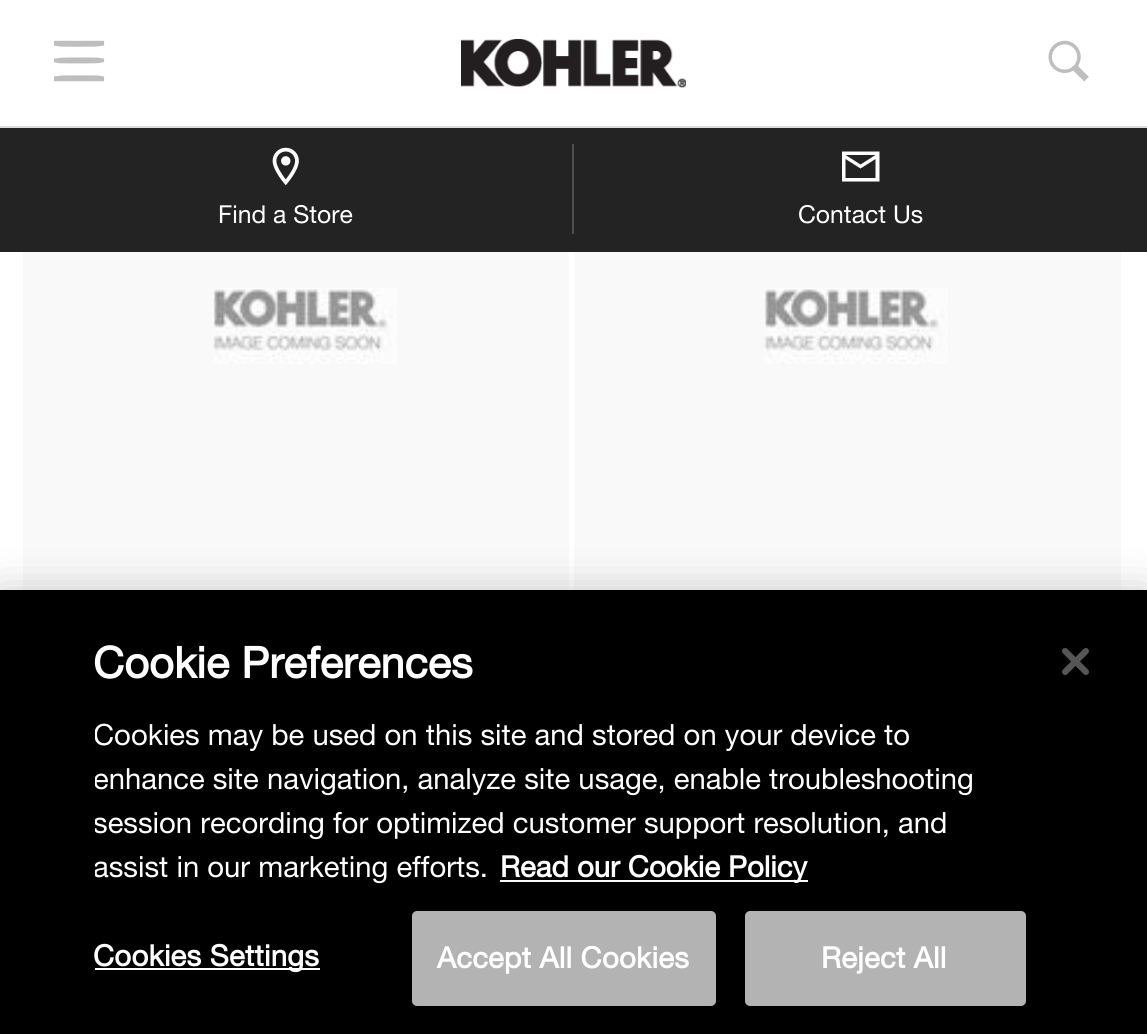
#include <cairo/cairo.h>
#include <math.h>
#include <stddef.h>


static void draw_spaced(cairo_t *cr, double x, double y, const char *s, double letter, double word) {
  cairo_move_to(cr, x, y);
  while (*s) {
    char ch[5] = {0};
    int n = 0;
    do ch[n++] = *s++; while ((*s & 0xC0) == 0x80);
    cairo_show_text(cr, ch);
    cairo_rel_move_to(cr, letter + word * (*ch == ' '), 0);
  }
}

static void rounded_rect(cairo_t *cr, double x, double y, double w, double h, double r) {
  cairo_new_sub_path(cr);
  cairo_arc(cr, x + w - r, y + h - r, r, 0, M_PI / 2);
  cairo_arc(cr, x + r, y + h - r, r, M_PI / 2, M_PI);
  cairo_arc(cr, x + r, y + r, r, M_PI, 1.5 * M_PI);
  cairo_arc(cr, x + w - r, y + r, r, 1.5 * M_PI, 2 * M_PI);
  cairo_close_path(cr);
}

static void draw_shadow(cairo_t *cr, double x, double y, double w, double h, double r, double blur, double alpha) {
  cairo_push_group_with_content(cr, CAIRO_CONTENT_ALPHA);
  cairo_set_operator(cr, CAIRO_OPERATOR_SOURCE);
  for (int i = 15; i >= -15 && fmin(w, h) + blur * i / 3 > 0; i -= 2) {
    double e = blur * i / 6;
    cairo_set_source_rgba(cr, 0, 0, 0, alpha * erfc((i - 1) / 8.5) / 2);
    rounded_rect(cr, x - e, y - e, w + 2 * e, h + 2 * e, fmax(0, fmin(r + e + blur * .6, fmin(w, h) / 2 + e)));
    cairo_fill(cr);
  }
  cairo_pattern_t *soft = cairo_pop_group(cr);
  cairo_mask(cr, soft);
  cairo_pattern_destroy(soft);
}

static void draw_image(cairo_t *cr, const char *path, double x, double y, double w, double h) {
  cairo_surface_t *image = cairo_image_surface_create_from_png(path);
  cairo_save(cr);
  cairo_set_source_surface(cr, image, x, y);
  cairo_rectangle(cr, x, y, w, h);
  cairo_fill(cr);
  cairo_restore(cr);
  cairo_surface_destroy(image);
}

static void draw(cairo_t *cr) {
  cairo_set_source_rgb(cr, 1, 1, 1);
  cairo_paint(cr);
  cairo_set_source_rgb(cr, 219 / 255.0, 219 / 255.0, 219 / 255.0);
  cairo_rectangle(cr, 0, 126, 1147, 2);
  cairo_fill(cr);
  draw_image(cr, "images/1.png", 54, 40, 51, 42);
  draw_image(cr, "images/2.png", 461, 39, 225, 49);
  draw_image(cr, "images/3.png", 1048, 40, 41, 42);
  cairo_set_source_rgb(cr, 35 / 255.0, 35 / 255.0, 35 / 255.0);
  cairo_rectangle(cr, 0, 128, 1147, 124);
  cairo_fill(cr);
  cairo_set_source_rgb(cr, 79 / 255.0, 79 / 255.0, 79 / 255.0);
  cairo_rectangle(cr, 572, 144, 2, 90);
  cairo_fill(cr);
  draw_image(cr, "images/4.png", 272, 147, 27, 39);
  cairo_set_source_rgb(cr, 1, 1, 1);
  cairo_new_path(cr);
  cairo_move_to(cr, 879.5, 151.5);
  cairo_line_to(cr, 842, 151.5);
  cairo_line_to(cr, 842, 181.5);
  cairo_line_to(cr, 879.5, 181.5);
  cairo_close_path(cr);
  cairo_move_to(cr, 875.5, 178);
  cairo_line_to(cr, 845.5, 178);
  cairo_line_to(cr, 845.5, 159);
  cairo_line_to(cr, 860.5, 168.5);
  cairo_line_to(cr, 875.5, 159);
  cairo_close_path(cr);
  cairo_move_to(cr, 860.5, 164.5);
  cairo_line_to(cr, 845.5, 155);
  cairo_line_to(cr, 875.5, 155);
  cairo_close_path(cr);
  cairo_fill(cr);
  cairo_set_source_rgb(cr, 249 / 255.0, 249 / 255.0, 249 / 255.0);
  cairo_rectangle(cr, 23, 252, 546, 338);
  cairo_fill(cr);
  draw_image(cr, "images/5.png", 213, 288, 184, 76);
  cairo_rectangle(cr, 574, 252, 547, 338);
  cairo_fill(cr);
  draw_image(cr, "images/6.png", 764, 288, 184, 76);
  cairo_set_source_rgb(cr, 0, 0, 0);
  draw_shadow(cr, 0, 590, 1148, 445, 0, 20, 0.2);
  cairo_set_source_rgb(cr, 0, 0, 0);
  cairo_rectangle(cr, 0, 590, 1147, 444);
  cairo_fill(cr);
  cairo_set_source_rgb(cr, 250 / 255.0, 250 / 255.0, 250 / 255.0);
  cairo_rectangle(cr, 500, 880, 308, 2);
  cairo_fill(cr);
  cairo_set_source_rgb(cr, 1, 1, 1);
  cairo_rectangle(cr, 95, 968, 225, 2);
  cairo_fill(cr);
  cairo_set_source_rgb(cr, 179 / 255.0, 179 / 255.0, 179 / 255.0);
  rounded_rect(cr, 413, 912, 302, 93, 4);
  cairo_fill_preserve(cr);
  cairo_stroke(cr);
  rounded_rect(cr, 746, 912, 279, 93, 4);
  cairo_fill_preserve(cr);
  cairo_stroke(cr);
  draw_image(cr, "images/7.png", 1062, 648, 27, 27);
  cairo_select_font_face(cr, "Helvetica", CAIRO_FONT_SLANT_NORMAL, CAIRO_FONT_WEIGHT_NORMAL);
  cairo_set_font_size(cr, 24.75);
  cairo_set_source_rgb(cr, 1, 1, 1);
  cairo_move_to(cr, 218, 223);
  cairo_show_text(cr, "Find a Store");
  cairo_move_to(cr, 798, 223);
  cairo_show_text(cr, "Contact Us");
  cairo_select_font_face(cr, "Helvetica", CAIRO_FONT_SLANT_NORMAL, CAIRO_FONT_WEIGHT_BOLD);
  cairo_set_font_size(cr, 43.25);
  cairo_move_to(cr, 93, 678);
  cairo_show_text(cr, "Cookie Preferences");
  cairo_save(cr);
  cairo_rectangle(cr, 95, 635, 909, 254);
  cairo_clip(cr);
  cairo_select_font_face(cr, "Helvetica", CAIRO_FONT_SLANT_NORMAL, CAIRO_FONT_WEIGHT_NORMAL);
  cairo_set_font_size(cr, 29.25);
  cairo_move_to(cr, 93, 745);
  cairo_show_text(cr, "Cookies may be used on this site and stored on your device to");
  cairo_move_to(cr, 93, 789);
  cairo_show_text(cr, "enhance site navigation, analyze site usage, enable troubleshooting");
  cairo_move_to(cr, 93, 833);
  cairo_show_text(cr, "session recording for optimized customer support resolution, and");
  cairo_move_to(cr, 93, 877);
  cairo_show_text(cr, "assist in our marketing efforts.");
  cairo_restore(cr);
  cairo_set_font_size(cr, 29.25);
  cairo_move_to(cr, 500, 877);
  cairo_show_text(cr, "Read our Cookie Policy");
  draw_spaced(cr, 93, 966, "Cookies Settings", 0.25, 0);
  draw_spaced(cr, 437, 968, "Accept All Cookies", 0.25, 0);
  draw_spaced(cr, 821, 968, "Reject All", 0.25, 0);
}

int main(void) {
  cairo_surface_t *surface = cairo_image_surface_create(CAIRO_FORMAT_RGB24, 1147, 1034);
  cairo_t *cr = cairo_create(surface);
  cairo_font_options_t *options = cairo_font_options_create();
  cairo_font_options_set_hint_metrics(options, CAIRO_HINT_METRICS_OFF);
  cairo_font_options_set_hint_style(options, CAIRO_HINT_STYLE_NONE);
  cairo_set_font_options(cr, options);
  cairo_set_miter_limit(cr, 4);
  draw(cr);
  cairo_surface_write_to_png(surface, "out.png");
  cairo_font_options_destroy(options);
  cairo_destroy(cr);
  cairo_surface_destroy(surface);
  return 0;
}
